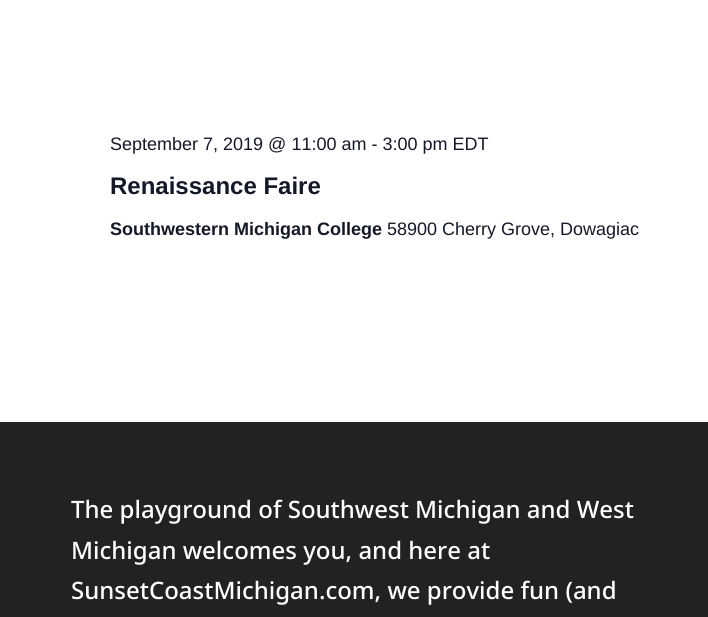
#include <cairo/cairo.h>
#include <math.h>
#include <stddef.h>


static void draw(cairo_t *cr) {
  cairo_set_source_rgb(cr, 1, 1, 1);
  cairo_paint(cr);
  cairo_set_source_rgb(cr, 34 / 255.0, 34 / 255.0, 34 / 255.0);
  cairo_rectangle(cr, 0, 422, 708, 195);
  cairo_fill(cr);
  cairo_select_font_face(cr, "Liberation Sans", CAIRO_FONT_SLANT_NORMAL, CAIRO_FONT_WEIGHT_NORMAL);
  cairo_set_font_size(cr, 18);
  cairo_set_source_rgb(cr, 20 / 255.0, 24 / 255.0, 39 / 255.0);
  cairo_move_to(cr, 110, 150);
  cairo_show_text(cr, "September 7, 2019 @ 11:00 am - 3:00 pm EDT");
  cairo_select_font_face(cr, "Liberation Sans", CAIRO_FONT_SLANT_NORMAL, CAIRO_FONT_WEIGHT_BOLD);
  cairo_set_font_size(cr, 24);
  cairo_move_to(cr, 110, 194);
  cairo_show_text(cr, "Renaissance Faire");
  cairo_set_font_size(cr, 18);
  cairo_move_to(cr, 110, 235);
  cairo_show_text(cr, "Southwestern Michigan College");
  cairo_select_font_face(cr, "Liberation Sans", CAIRO_FONT_SLANT_NORMAL, CAIRO_FONT_WEIGHT_NORMAL);
  cairo_move_to(cr, 387, 235);
  cairo_show_text(cr, "58900 Cherry Grove, Dowagiac");
  cairo_select_font_face(cr, "Noto Sans Medium", CAIRO_FONT_SLANT_NORMAL, CAIRO_FONT_WEIGHT_NORMAL);
  cairo_set_font_size(cr, 24);
  cairo_set_source_rgb(cr, 1, 1, 1);
  cairo_move_to(cr, 71, 518);
  cairo_show_text(cr, "The playground of Southwest Michigan and West");
  cairo_move_to(cr, 71, 559);
  cairo_show_text(cr, "Michigan welcomes you, and here at");
  cairo_move_to(cr, 71, 599);
  cairo_show_text(cr, "SunsetCoastMichigan.com, we provide fun (and");
}

int main(void) {
  cairo_surface_t *surface = cairo_image_surface_create(CAIRO_FORMAT_RGB24, 708, 617);
  cairo_t *cr = cairo_create(surface);
  cairo_font_options_t *options = cairo_font_options_create();
  cairo_font_options_set_hint_metrics(options, CAIRO_HINT_METRICS_OFF);
  cairo_font_options_set_hint_style(options, CAIRO_HINT_STYLE_NONE);
  cairo_set_font_options(cr, options);
  cairo_set_miter_limit(cr, 4);
  draw(cr);
  cairo_surface_write_to_png(surface, "out.png");
  cairo_font_options_destroy(options);
  cairo_destroy(cr);
  cairo_surface_destroy(surface);
  return 0;
}
